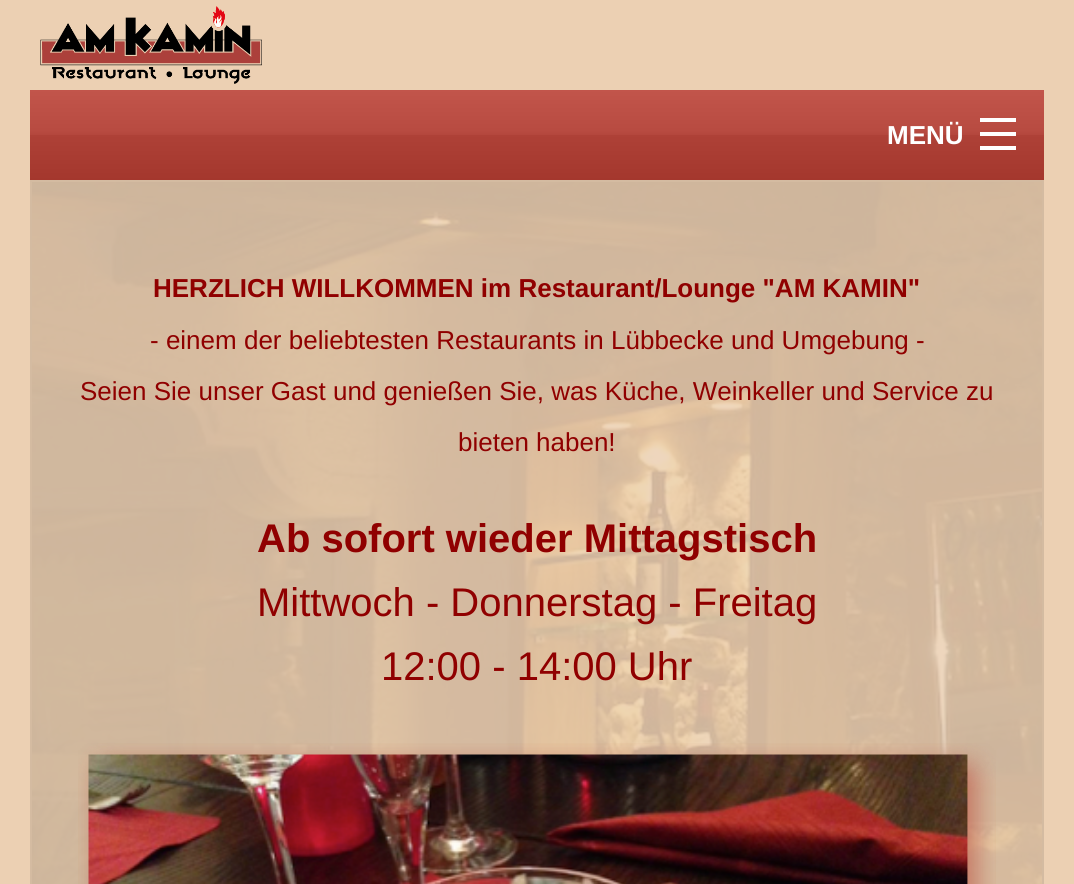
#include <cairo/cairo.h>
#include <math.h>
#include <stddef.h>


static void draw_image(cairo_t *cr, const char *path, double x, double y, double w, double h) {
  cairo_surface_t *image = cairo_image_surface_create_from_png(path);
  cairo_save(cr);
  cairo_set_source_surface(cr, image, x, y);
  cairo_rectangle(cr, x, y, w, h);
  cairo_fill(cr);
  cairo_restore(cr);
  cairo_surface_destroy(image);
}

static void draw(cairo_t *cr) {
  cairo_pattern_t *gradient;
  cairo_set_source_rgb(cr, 236 / 255.0, 208 / 255.0, 179 / 255.0);
  cairo_paint(cr);
  draw_image(cr, "images/1.png", 40, 6, 222, 78);
  gradient = cairo_pattern_create_linear(537, 90, 537, 180);
  cairo_pattern_add_color_stop_rgba(gradient, 0, 194 / 255.0, 85 / 255.0, 75 / 255.0, 1);
  cairo_pattern_add_color_stop_rgba(gradient, 0.45, 184 / 255.0, 75 / 255.0, 65 / 255.0, 1);
  cairo_pattern_add_color_stop_rgba(gradient, 0.5, 179 / 255.0, 70 / 255.0, 60 / 255.0, 1);
  cairo_pattern_add_color_stop_rgba(gradient, 0.5, 174 / 255.0, 65 / 255.0, 55 / 255.0, 1);
  cairo_pattern_add_color_stop_rgba(gradient, 1, 164 / 255.0, 55 / 255.0, 45 / 255.0, 1);
  cairo_set_source(cr, gradient);
  cairo_pattern_destroy(gradient);
  cairo_rectangle(cr, 30, 90, 1014, 90);
  cairo_fill(cr);
  cairo_set_source_rgb(cr, 1, 1, 1);
  cairo_rectangle(cr, 980, 146, 36, 4);
  cairo_fill(cr);
  cairo_rectangle(cr, 980, 132, 36, 4);
  cairo_fill(cr);
  cairo_rectangle(cr, 980, 118, 36, 4);
  cairo_fill(cr);
  draw_image(cr, "images/2.png", 32, 182, 1010, 702);
  cairo_rectangle(cr, 31, 181, 1012, 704);
  cairo_set_source_rgb(cr, 212 / 255.0, 187 / 255.0, 161 / 255.0);
  cairo_stroke(cr);
  draw_image(cr, "images/3.png", 78, 743, 918, 141);
  cairo_select_font_face(cr, "Liberation Sans", CAIRO_FONT_SLANT_NORMAL, CAIRO_FONT_WEIGHT_BOLD);
  cairo_set_font_size(cr, 26);
  cairo_set_source_rgb(cr, 1, 1, 1);
  cairo_move_to(cr, 887, 144);
  cairo_show_text(cr, "MENÜ");
  cairo_set_source_rgb(cr, 144 / 255.0, 0, 0);
  cairo_move_to(cr, 153, 297);
  cairo_show_text(cr, "HERZLICH WILLKOMMEN im Restaurant/Lounge \"AM KAMIN\"");
  cairo_select_font_face(cr, "Liberation Sans", CAIRO_FONT_SLANT_NORMAL, CAIRO_FONT_WEIGHT_NORMAL);
  cairo_move_to(cr, 150, 349);
  cairo_show_text(cr, "- einem der beliebtesten Restaurants in Lübbecke und Umgebung -");
  cairo_move_to(cr, 80, 400);
  cairo_show_text(cr, "Seien Sie unser Gast und genießen Sie, was Küche, Weinkeller und Service zu");
  cairo_move_to(cr, 458, 451);
  cairo_show_text(cr, "bieten haben!");
  cairo_select_font_face(cr, "Liberation Sans", CAIRO_FONT_SLANT_NORMAL, CAIRO_FONT_WEIGHT_BOLD);
  cairo_set_font_size(cr, 40);
  cairo_move_to(cr, 257, 552);
  cairo_show_text(cr, "Ab sofort wieder Mittagstisch");
  cairo_select_font_face(cr, "Liberation Sans", CAIRO_FONT_SLANT_NORMAL, CAIRO_FONT_WEIGHT_NORMAL);
  cairo_move_to(cr, 257, 616);
  cairo_show_text(cr, "Mittwoch - Donnerstag - Freitag");
  cairo_move_to(cr, 381, 680);
  cairo_show_text(cr, "12:00 - 14:00 Uhr");
}

int main(void) {
  cairo_surface_t *surface = cairo_image_surface_create(CAIRO_FORMAT_RGB24, 1074, 884);
  cairo_t *cr = cairo_create(surface);
  cairo_font_options_t *options = cairo_font_options_create();
  cairo_font_options_set_hint_metrics(options, CAIRO_HINT_METRICS_OFF);
  cairo_font_options_set_hint_style(options, CAIRO_HINT_STYLE_NONE);
  cairo_set_font_options(cr, options);
  cairo_set_miter_limit(cr, 4);
  draw(cr);
  cairo_surface_write_to_png(surface, "out.png");
  cairo_font_options_destroy(options);
  cairo_destroy(cr);
  cairo_surface_destroy(surface);
  return 0;
}
